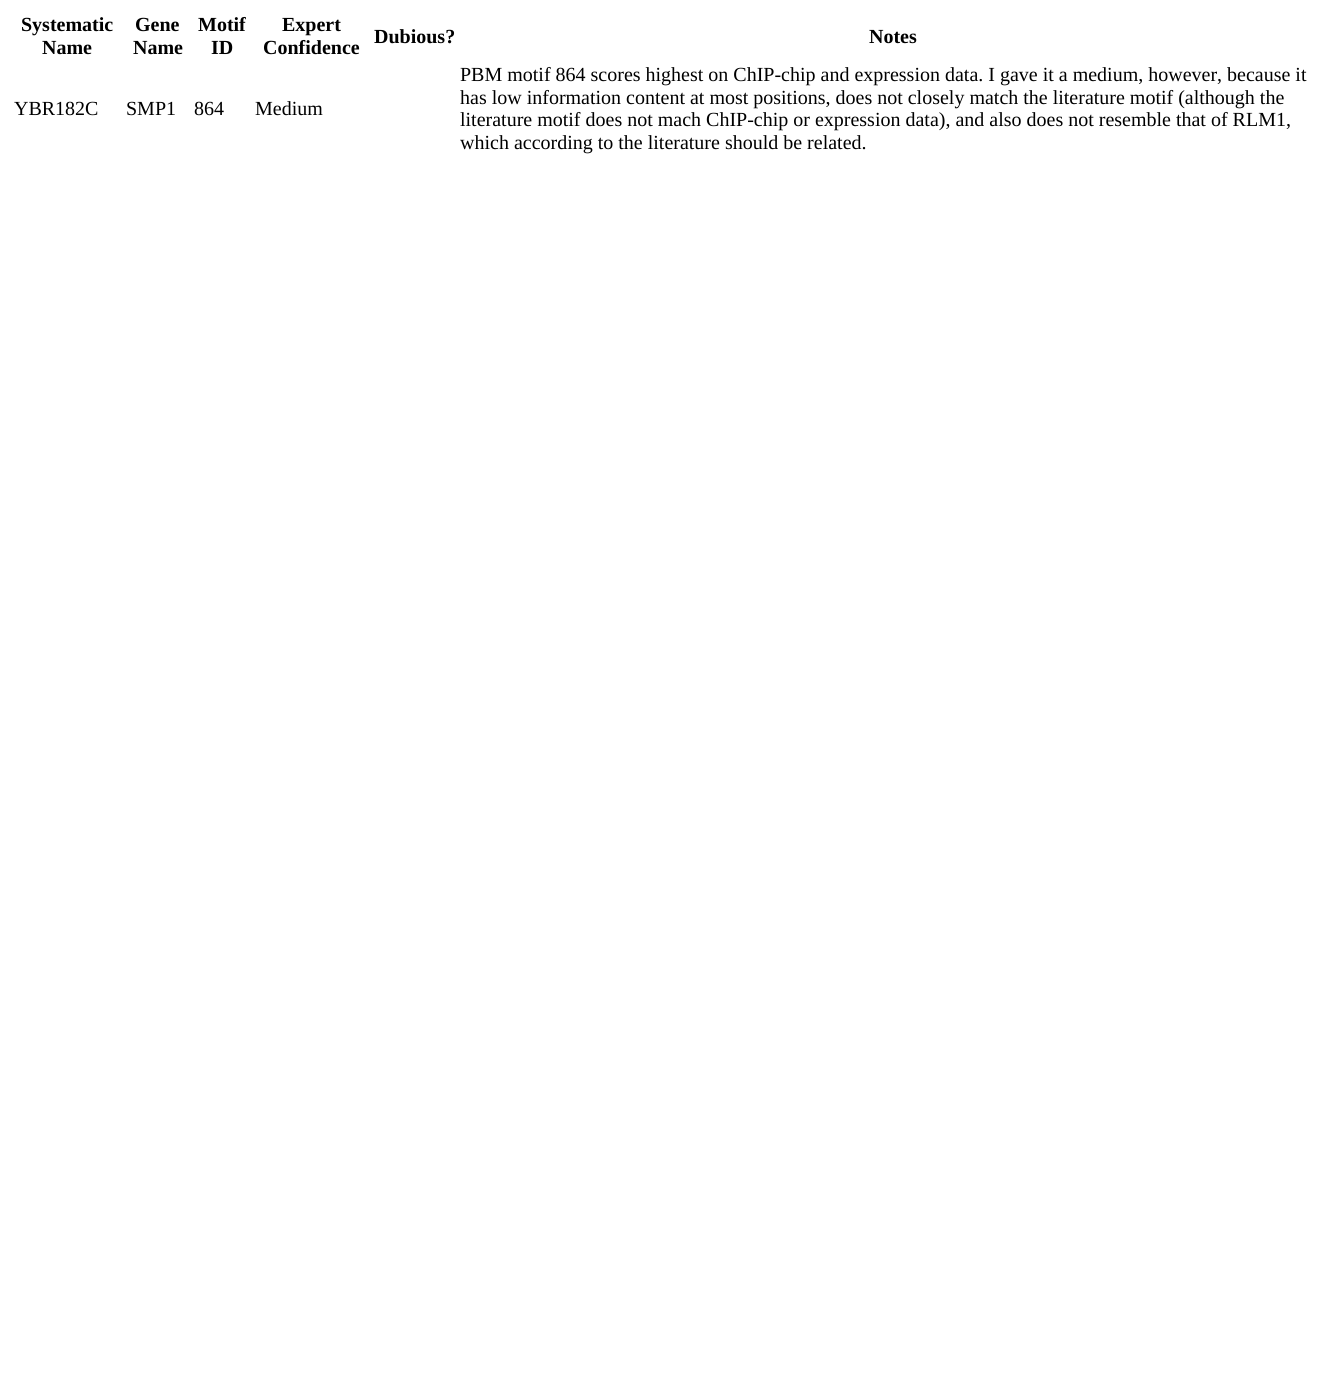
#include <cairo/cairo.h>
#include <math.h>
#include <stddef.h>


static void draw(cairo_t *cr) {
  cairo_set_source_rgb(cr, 1, 1, 1);
  cairo_paint(cr);
  cairo_select_font_face(cr, "Liberation Serif", CAIRO_FONT_SLANT_NORMAL, CAIRO_FONT_WEIGHT_BOLD);
  cairo_set_font_size(cr, 20);
  cairo_set_source_rgb(cr, 0, 0, 0);
  cairo_move_to(cr, 21, 31);
  cairo_show_text(cr, "Systematic");
  cairo_move_to(cr, 42, 54);
  cairo_show_text(cr, "Name");
  cairo_move_to(cr, 135, 31);
  cairo_show_text(cr, "Gene");
  cairo_move_to(cr, 133, 54);
  cairo_show_text(cr, "Name");
  cairo_move_to(cr, 198, 31);
  cairo_show_text(cr, "Motif");
  cairo_move_to(cr, 211, 54);
  cairo_show_text(cr, "ID");
  cairo_move_to(cr, 282, 31);
  cairo_show_text(cr, "Expert");
  cairo_move_to(cr, 263, 54);
  cairo_show_text(cr, "Confidence");
  cairo_move_to(cr, 374, 43);
  cairo_show_text(cr, "Dubious?");
  cairo_move_to(cr, 869, 43);
  cairo_show_text(cr, "Notes");
  cairo_select_font_face(cr, "Liberation Serif", CAIRO_FONT_SLANT_NORMAL, CAIRO_FONT_WEIGHT_NORMAL);
  cairo_move_to(cr, 14, 115);
  cairo_show_text(cr, "YBR182C");
  cairo_move_to(cr, 126, 115);
  cairo_show_text(cr, "SMP1");
  cairo_move_to(cr, 194, 115);
  cairo_show_text(cr, "864");
  cairo_move_to(cr, 255, 115);
  cairo_show_text(cr, "Medium");
  cairo_move_to(cr, 460, 81);
  cairo_show_text(cr, "PBM motif 864 scores highest on ChIP-chip and expression data. I gave it a medium, however, because it");
  cairo_move_to(cr, 460, 104);
  cairo_show_text(cr, "has low information content at most positions, does not closely match the literature motif (although the");
  cairo_move_to(cr, 460, 126);
  cairo_show_text(cr, "literature motif does not mach ChIP-chip or expression data), and also does not resemble that of RLM1,");
  cairo_move_to(cr, 460, 149);
  cairo_show_text(cr, "which according to the literature should be related.");
}

int main(void) {
  cairo_surface_t *surface = cairo_image_surface_create(CAIRO_FORMAT_RGB24, 1339, 1391);
  cairo_t *cr = cairo_create(surface);
  cairo_font_options_t *options = cairo_font_options_create();
  cairo_font_options_set_hint_metrics(options, CAIRO_HINT_METRICS_OFF);
  cairo_font_options_set_hint_style(options, CAIRO_HINT_STYLE_NONE);
  cairo_set_font_options(cr, options);
  cairo_set_miter_limit(cr, 4);
  draw(cr);
  cairo_surface_write_to_png(surface, "out.png");
  cairo_font_options_destroy(options);
  cairo_destroy(cr);
  cairo_surface_destroy(surface);
  return 0;
}
